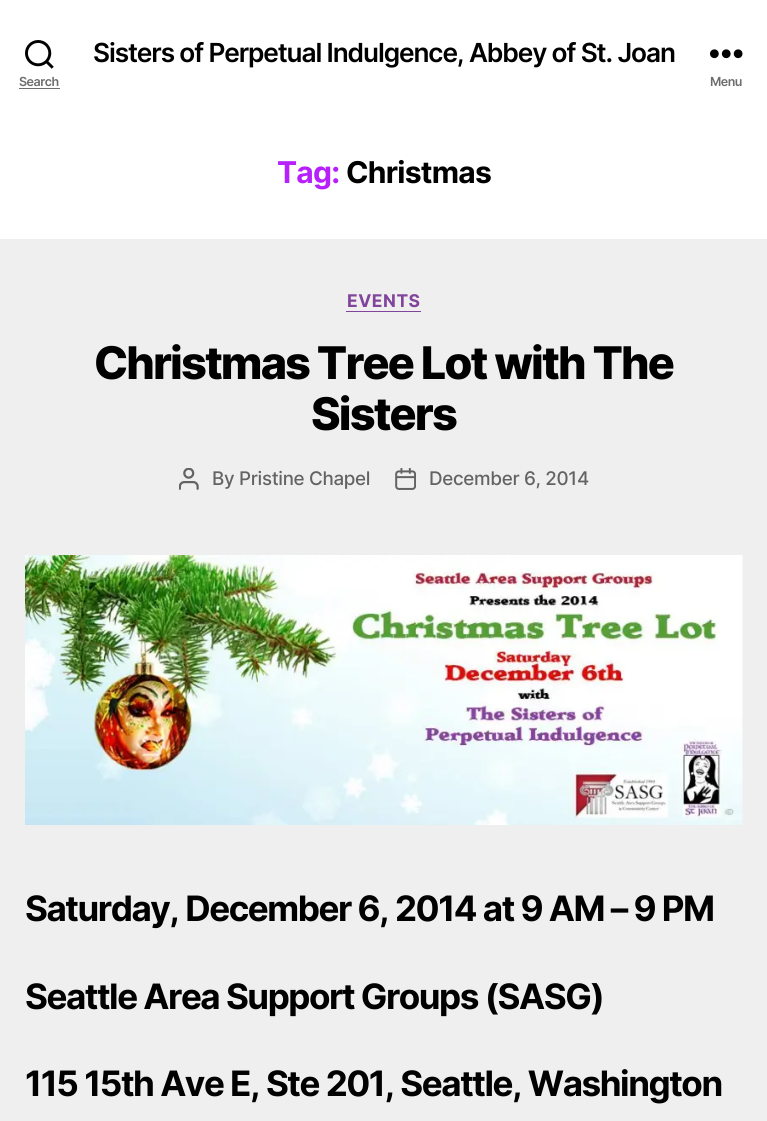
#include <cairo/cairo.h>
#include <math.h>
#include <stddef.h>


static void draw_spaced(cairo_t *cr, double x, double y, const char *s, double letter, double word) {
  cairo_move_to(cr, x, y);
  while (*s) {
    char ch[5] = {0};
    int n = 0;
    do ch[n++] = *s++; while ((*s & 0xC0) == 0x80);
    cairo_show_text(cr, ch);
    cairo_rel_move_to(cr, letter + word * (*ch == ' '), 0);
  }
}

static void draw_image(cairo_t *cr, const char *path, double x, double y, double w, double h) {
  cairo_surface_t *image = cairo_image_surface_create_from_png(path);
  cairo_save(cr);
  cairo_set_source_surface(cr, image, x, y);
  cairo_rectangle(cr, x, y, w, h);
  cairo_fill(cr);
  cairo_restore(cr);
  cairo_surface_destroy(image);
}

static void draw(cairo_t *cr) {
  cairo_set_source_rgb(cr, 239 / 255.0, 239 / 255.0, 239 / 255.0);
  cairo_paint(cr);
  cairo_set_source_rgb(cr, 1, 1, 1);
  cairo_rectangle(cr, 0, 0, 767, 239);
  cairo_fill(cr);
  draw_image(cr, "images/1.png", 25, 40, 29, 29);
  cairo_set_source_rgb(cr, 109 / 255.0, 109 / 255.0, 109 / 255.0);
  cairo_rectangle(cr, 19, 88, 41, 1);
  cairo_fill(cr);
  draw_image(cr, "images/2.png", 710, 49, 33, 10);
  cairo_set_source_rgb(cr, 129 / 255.0, 69 / 255.0, 155 / 255.0);
  cairo_rectangle(cr, 346, 311, 75, 1);
  cairo_fill(cr);
  draw_image(cr, "images/3.png", 179, 468, 20, 22);
  draw_image(cr, "images/4.png", 395, 468, 21, 22);
  draw_image(cr, "images/5.png", 25, 555, 718, 270);
  cairo_select_font_face(cr, "Inter SemiBold", CAIRO_FONT_SLANT_NORMAL, CAIRO_FONT_WEIGHT_NORMAL);
  cairo_set_font_size(cr, 26.25);
  cairo_set_source_rgb(cr, 0, 0, 0);
  draw_spaced(cr, 93, 62, "Sisters of Perpetual Indulgence, Abbey of St. Joan", -1.1, 0);
  cairo_set_font_size(cr, 12.5);
  cairo_set_source_rgb(cr, 109 / 255.0, 109 / 255.0, 109 / 255.0);
  draw_spaced(cr, 19, 86, "Search", -0.5, 0);
  draw_spaced(cr, 710, 86, "Menu", -0.5, 0);
  cairo_select_font_face(cr, "Inter", CAIRO_FONT_SLANT_NORMAL, CAIRO_FONT_WEIGHT_BOLD);
  cairo_set_font_size(cr, 30);
  cairo_set_source_rgb(cr, 183 / 255.0, 31 / 255.0, 253 / 255.0);
  draw_spaced(cr, 277, 183, "Tag:", -0.75, 0);
  cairo_set_source_rgb(cr, 0, 0, 0);
  draw_spaced(cr, 346, 183, "Christmas", -0.75, 0);
  cairo_set_font_size(cr, 17.5);
  cairo_set_source_rgb(cr, 129 / 255.0, 69 / 255.0, 155 / 255.0);
  draw_spaced(cr, 347, 307, "EVENTS", 0.5, 0);
  cairo_select_font_face(cr, "Inter ExtraBold", CAIRO_FONT_SLANT_NORMAL, CAIRO_FONT_WEIGHT_NORMAL);
  cairo_set_font_size(cr, 45);
  cairo_set_source_rgb(cr, 0, 0, 0);
  draw_spaced(cr, 94, 379, "Christmas Tree Lot with The", -1.9, 0);
  draw_spaced(cr, 311, 430, "Sisters", -1.9, 0);
  cairo_select_font_face(cr, "Inter Medium", CAIRO_FONT_SLANT_NORMAL, CAIRO_FONT_WEIGHT_NORMAL);
  cairo_set_font_size(cr, 18.75);
  cairo_set_source_rgb(cr, 99 / 255.0, 99 / 255.0, 99 / 255.0);
  draw_spaced(cr, 212, 485, "By Pristine Chapel", -0.3, 0);
  draw_spaced(cr, 429, 485, "December 6, 2014", -0.3, 0);
  cairo_select_font_face(cr, "Inter", CAIRO_FONT_SLANT_NORMAL, CAIRO_FONT_WEIGHT_BOLD);
  cairo_set_font_size(cr, 35);
  cairo_set_source_rgb(cr, 0, 0, 0);
  draw_spaced(cr, 25, 921, "Saturday, December 6, 2014 at 9 AM – 9 PM", -1.45, 0);
  draw_spaced(cr, 25, 1009, "Seattle Area Support Groups (SASG)", -1.45, 0);
  draw_spaced(cr, 25, 1096, "115 15th Ave E, Ste 201, Seattle, Washington", -1.45, 0);
}

int main(void) {
  cairo_surface_t *surface = cairo_image_surface_create(CAIRO_FORMAT_RGB24, 767, 1121);
  cairo_t *cr = cairo_create(surface);
  cairo_font_options_t *options = cairo_font_options_create();
  cairo_font_options_set_hint_metrics(options, CAIRO_HINT_METRICS_OFF);
  cairo_font_options_set_hint_style(options, CAIRO_HINT_STYLE_NONE);
  cairo_set_font_options(cr, options);
  cairo_set_miter_limit(cr, 4);
  draw(cr);
  cairo_surface_write_to_png(surface, "out.png");
  cairo_font_options_destroy(options);
  cairo_destroy(cr);
  cairo_surface_destroy(surface);
  return 0;
}
